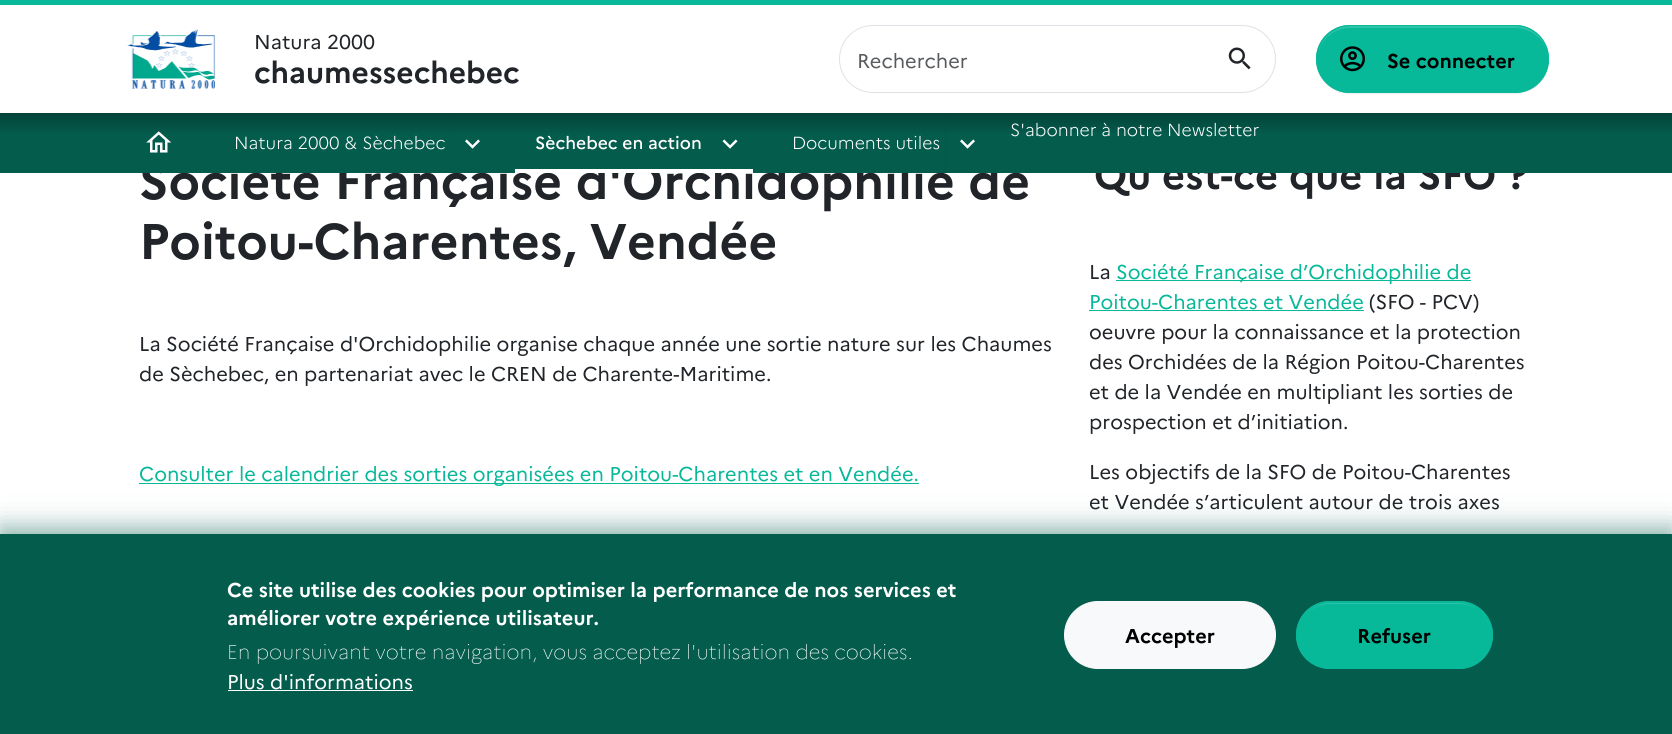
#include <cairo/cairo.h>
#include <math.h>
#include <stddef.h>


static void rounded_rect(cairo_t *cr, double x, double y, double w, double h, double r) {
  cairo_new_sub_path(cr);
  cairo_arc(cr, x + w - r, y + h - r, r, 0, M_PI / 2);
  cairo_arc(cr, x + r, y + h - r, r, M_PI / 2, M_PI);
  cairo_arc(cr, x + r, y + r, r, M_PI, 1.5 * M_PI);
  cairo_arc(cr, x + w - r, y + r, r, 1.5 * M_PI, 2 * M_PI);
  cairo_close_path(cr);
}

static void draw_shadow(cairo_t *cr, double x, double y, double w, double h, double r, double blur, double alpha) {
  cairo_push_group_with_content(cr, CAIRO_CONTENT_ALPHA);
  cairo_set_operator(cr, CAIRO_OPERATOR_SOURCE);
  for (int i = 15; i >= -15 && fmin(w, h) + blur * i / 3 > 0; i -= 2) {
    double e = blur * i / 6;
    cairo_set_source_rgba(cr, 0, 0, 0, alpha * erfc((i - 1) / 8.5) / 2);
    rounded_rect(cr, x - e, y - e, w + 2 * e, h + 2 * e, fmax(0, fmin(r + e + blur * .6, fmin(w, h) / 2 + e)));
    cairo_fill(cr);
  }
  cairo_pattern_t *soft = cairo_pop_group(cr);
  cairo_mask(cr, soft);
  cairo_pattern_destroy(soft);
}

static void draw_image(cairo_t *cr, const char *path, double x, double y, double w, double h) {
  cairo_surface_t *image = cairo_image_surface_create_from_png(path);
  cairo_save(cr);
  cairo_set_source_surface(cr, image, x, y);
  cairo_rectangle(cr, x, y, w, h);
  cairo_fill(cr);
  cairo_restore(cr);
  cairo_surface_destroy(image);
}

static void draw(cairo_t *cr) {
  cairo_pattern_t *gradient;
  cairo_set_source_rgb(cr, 1, 1, 1);
  cairo_paint(cr);
  cairo_set_source_rgb(cr, 7 / 255.0, 184 / 255.0, 153 / 255.0);
  cairo_rectangle(cr, 0, 0, 1672, 5);
  cairo_fill(cr);
  draw_image(cr, "images/1.png", 127, 29, 89, 60);
  rounded_rect(cr, 839.5, 25.5, 436, 67, 33.5);
  cairo_set_source_rgb(cr, 222 / 255.0, 226 / 255.0, 230 / 255.0);
  cairo_set_line_width(cr, 1);
  cairo_stroke(cr);
  draw_image(cr, "images/2.png", 1228, 47, 23, 23);
  cairo_set_source_rgb(cr, 0, 0, 0);
  draw_shadow(cr, 1316, 26, 233, 68, 34, 0.5, 0.07);
  cairo_set_source_rgb(cr, 7 / 255.0, 184 / 255.0, 153 / 255.0);
  rounded_rect(cr, 1316, 25, 233, 68, 34);
  cairo_fill(cr);
  cairo_set_source_rgb(cr, 44 / 255.0, 195 / 255.0, 168 / 255.0);
  cairo_new_path(cr);
  cairo_move_to(cr, 1350, 28);
  cairo_line_to(cr, 1515, 28);
  cairo_curve_to(cr, 1533, 28, 1548, 42, 1548, 59);
  cairo_line_to(cr, 1548, 58);
  cairo_curve_to(cr, 1548, 41, 1533, 26, 1516, 26);
  cairo_line_to(cr, 1350, 26);
  cairo_curve_to(cr, 1333, 26, 1318, 41, 1318, 58);
  cairo_line_to(cr, 1318, 59);
  cairo_curve_to(cr, 1318, 42, 1332, 28, 1350, 28);
  cairo_close_path(cr);
  cairo_fill(cr);
  rounded_rect(cr, 1316.5, 25.5, 232, 67, 33.5);
  cairo_set_source_rgb(cr, 7 / 255.0, 184 / 255.0, 153 / 255.0);
  cairo_stroke(cr);
  draw_image(cr, "images/3.png", 1340, 46, 25, 26);
  cairo_rectangle(cr, 139, 483, 780, 1);
  cairo_fill(cr);
  cairo_rectangle(cr, 1116, 280, 355, 1);
  cairo_fill(cr);
  cairo_rectangle(cr, 1089, 310, 275, 1);
  cairo_fill(cr);
  cairo_set_source_rgb(cr, 4 / 255.0, 92 / 255.0, 77 / 255.0);
  draw_shadow(cr, 0, 530, 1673, 201, 0, 9, 0.3);
  draw_shadow(cr, 0, 521, 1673, 202, 0, 12.5, 0.2);
  cairo_set_source_rgb(cr, 4 / 255.0, 92 / 255.0, 77 / 255.0);
  cairo_rectangle(cr, 0, 534, 1672, 200);
  cairo_fill(cr);
  cairo_set_source_rgb(cr, 1, 1, 1);
  cairo_rectangle(cr, 228, 690, 185, 1);
  cairo_fill(cr);
  cairo_set_source_rgb(cr, 248 / 255.0, 249 / 255.0, 250 / 255.0);
  rounded_rect(cr, 1064.5, 601.5, 211, 67, 33.5);
  cairo_fill_preserve(cr);
  cairo_stroke(cr);
  cairo_set_source_rgb(cr, 7 / 255.0, 184 / 255.0, 153 / 255.0);
  rounded_rect(cr, 1296, 601, 197, 68, 34);
  cairo_fill(cr);
  cairo_set_source_rgb(cr, 44 / 255.0, 195 / 255.0, 168 / 255.0);
  cairo_new_path(cr);
  cairo_move_to(cr, 1330, 604);
  cairo_line_to(cr, 1459, 604);
  cairo_curve_to(cr, 1477, 604, 1491, 618, 1491, 636);
  cairo_curve_to(cr, 1491, 618, 1476, 603, 1458, 603);
  cairo_line_to(cr, 1330, 603);
  cairo_curve_to(cr, 1313, 603, 1298, 618, 1298, 636);
  cairo_curve_to(cr, 1298, 618, 1312, 604, 1330, 604);
  cairo_close_path(cr);
  cairo_fill(cr);
  rounded_rect(cr, 1296.5, 601.5, 196, 67, 33.5);
  cairo_set_source_rgb(cr, 7 / 255.0, 184 / 255.0, 153 / 255.0);
  cairo_stroke(cr);
  cairo_select_font_face(cr, "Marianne", CAIRO_FONT_SLANT_NORMAL, CAIRO_FONT_WEIGHT_NORMAL);
  cairo_set_font_size(cr, 20);
  cairo_set_source_rgb(cr, 33 / 255.0, 37 / 255.0, 41 / 255.0);
  cairo_move_to(cr, 254, 49);
  cairo_show_text(cr, "Natura 2000");
  cairo_select_font_face(cr, "Marianne", CAIRO_FONT_SLANT_NORMAL, CAIRO_FONT_WEIGHT_BOLD);
  cairo_set_font_size(cr, 30);
  cairo_move_to(cr, 254, 83);
  cairo_show_text(cr, "chaumessechebec");
  cairo_select_font_face(cr, "Marianne", CAIRO_FONT_SLANT_NORMAL, CAIRO_FONT_WEIGHT_NORMAL);
  cairo_set_font_size(cr, 20);
  cairo_set_source_rgb(cr, 89 / 255.0, 92 / 255.0, 95 / 255.0);
  cairo_move_to(cr, 857, 68);
  cairo_show_text(cr, "Rechercher");
  cairo_select_font_face(cr, "Marianne", CAIRO_FONT_SLANT_NORMAL, CAIRO_FONT_WEIGHT_BOLD);
  cairo_set_source_rgb(cr, 0, 0, 0);
  cairo_move_to(cr, 1387, 68);
  cairo_show_text(cr, "Se connecter");
  cairo_set_font_size(cr, 50);
  cairo_set_source_rgb(cr, 33 / 255.0, 37 / 255.0, 41 / 255.0);
  cairo_move_to(cr, 139, 199);
  cairo_show_text(cr, "Société Française d'Orchidophilie de");
  cairo_move_to(cr, 139, 259);
  cairo_show_text(cr, "Poitou-Charentes, Vendée");
  cairo_select_font_face(cr, "Marianne", CAIRO_FONT_SLANT_NORMAL, CAIRO_FONT_WEIGHT_NORMAL);
  cairo_set_font_size(cr, 20);
  cairo_move_to(cr, 139, 351);
  cairo_show_text(cr, "La Société Française d'Orchidophilie organise chaque année une sortie nature sur les Chaumes");
  cairo_move_to(cr, 139, 381);
  cairo_show_text(cr, "de Sèchebec, en partenariat avec le CREN de Charente-Maritime.");
  cairo_set_source_rgb(cr, 7 / 255.0, 184 / 255.0, 153 / 255.0);
  cairo_move_to(cr, 139, 481);
  cairo_show_text(cr, "Consulter le calendrier des sorties organisées en Poitou-Charentes et en Vendée.");
  cairo_select_font_face(cr, "Marianne", CAIRO_FONT_SLANT_NORMAL, CAIRO_FONT_WEIGHT_BOLD);
  cairo_set_font_size(cr, 40);
  cairo_set_source_rgb(cr, 33 / 255.0, 37 / 255.0, 41 / 255.0);
  cairo_move_to(cr, 1094, 189);
  cairo_show_text(cr, "Qu'est-ce que la SFO ?");
  cairo_set_source_rgb(cr, 4 / 255.0, 92 / 255.0, 77 / 255.0);
  cairo_rectangle(cr, 0, 113, 1672, 60);
  cairo_fill(cr);
  cairo_set_source_rgb(cr, 5 / 255.0, 89 / 255.0, 75 / 255.0);
  cairo_rectangle(cr, 945, 113, 1, 60);
  cairo_fill(cr);
  cairo_rectangle(cr, 450, 113, 1, 60);
  cairo_fill(cr);
  draw_image(cr, "images/4.png", 146, 131, 26, 22);
  gradient = cairo_pattern_create_linear(836, 112, 836, 173);
  cairo_pattern_add_color_stop_rgba(gradient, 0, 0, 0, 0, 0.28);
  cairo_pattern_add_color_stop_rgba(gradient, 0.38, 0, 0, 0, 0);
  cairo_set_source(cr, gradient);
  cairo_pattern_destroy(gradient);
  cairo_rectangle(cr, 0, 113, 1672, 20);
  cairo_fill(cr);
  cairo_select_font_face(cr, "Marianne Light", CAIRO_FONT_SLANT_NORMAL, CAIRO_FONT_WEIGHT_NORMAL);
  cairo_set_font_size(cr, 17.5);
  cairo_set_source_rgb(cr, 1, 1, 1);
  cairo_move_to(cr, 1010, 136);
  cairo_show_text(cr, "S'abonner à notre Newsletter");
  draw_image(cr, "images/5.png", 960, 139, 15, 10);
  cairo_move_to(cr, 792, 149);
  cairo_show_text(cr, "Documents utiles");
  draw_image(cr, "images/6.png", 722, 139, 16, 10);
  cairo_select_font_face(cr, "Marianne Medium", CAIRO_FONT_SLANT_NORMAL, CAIRO_FONT_WEIGHT_NORMAL);
  cairo_move_to(cr, 535, 149);
  cairo_show_text(cr, "Sèchebec en action");
  cairo_rectangle(cr, 515, 169, 238, 4);
  cairo_fill(cr);
  draw_image(cr, "images/5.png", 465, 139, 15, 10);
  cairo_select_font_face(cr, "Marianne Light", CAIRO_FONT_SLANT_NORMAL, CAIRO_FONT_WEIGHT_NORMAL);
  cairo_move_to(cr, 234, 149);
  cairo_show_text(cr, "Natura 2000 & Sèchebec");
  cairo_select_font_face(cr, "Marianne", CAIRO_FONT_SLANT_NORMAL, CAIRO_FONT_WEIGHT_NORMAL);
  cairo_set_font_size(cr, 20);
  cairo_set_source_rgb(cr, 33 / 255.0, 37 / 255.0, 41 / 255.0);
  cairo_move_to(cr, 1089, 279);
  cairo_show_text(cr, "La");
  cairo_set_source_rgb(cr, 7 / 255.0, 184 / 255.0, 153 / 255.0);
  cairo_move_to(cr, 1116, 279);
  cairo_show_text(cr, "Société Française d’Orchidophilie de");
  cairo_move_to(cr, 1089, 309);
  cairo_show_text(cr, "Poitou-Charentes et Vendée");
  cairo_set_source_rgb(cr, 33 / 255.0, 37 / 255.0, 41 / 255.0);
  cairo_move_to(cr, 1369, 309);
  cairo_show_text(cr, "(SFO - PCV)");
  cairo_move_to(cr, 1089, 339);
  cairo_show_text(cr, "oeuvre pour la connaissance et la protection");
  cairo_move_to(cr, 1089, 369);
  cairo_show_text(cr, "des Orchidées de la Région Poitou-Charentes");
  cairo_move_to(cr, 1089, 399);
  cairo_show_text(cr, "et de la Vendée en multipliant les sorties de");
  cairo_move_to(cr, 1089, 429);
  cairo_show_text(cr, "prospection et d’initiation.");
  cairo_move_to(cr, 1089, 479);
  cairo_show_text(cr, "Les objectifs de la SFO de Poitou-Charentes");
  cairo_move_to(cr, 1089, 509);
  cairo_show_text(cr, "et Vendée s’articulent autour de trois axes");
  cairo_select_font_face(cr, "Marianne", CAIRO_FONT_SLANT_NORMAL, CAIRO_FONT_WEIGHT_BOLD);
  cairo_set_source_rgb(cr, 1, 1, 1);
  cairo_move_to(cr, 227, 597);
  cairo_show_text(cr, "Ce site utilise des cookies pour optimiser la performance de nos services et");
  cairo_move_to(cr, 227, 625);
  cairo_show_text(cr, "améliorer votre expérience utilisateur.");
  cairo_select_font_face(cr, "Marianne Thin", CAIRO_FONT_SLANT_NORMAL, CAIRO_FONT_WEIGHT_NORMAL);
  cairo_move_to(cr, 227, 659);
  cairo_show_text(cr, "En poursuivant votre navigation, vous acceptez l'utilisation des cookies.");
  cairo_select_font_face(cr, "Marianne", CAIRO_FONT_SLANT_NORMAL, CAIRO_FONT_WEIGHT_NORMAL);
  cairo_move_to(cr, 227, 689);
  cairo_show_text(cr, "Plus d'informations");
  cairo_select_font_face(cr, "Marianne", CAIRO_FONT_SLANT_NORMAL, CAIRO_FONT_WEIGHT_BOLD);
  cairo_set_source_rgb(cr, 0, 0, 0);
  cairo_move_to(cr, 1125, 643);
  cairo_show_text(cr, "Accepter");
  cairo_move_to(cr, 1357, 643);
  cairo_show_text(cr, "Refuser");
}

int main(void) {
  cairo_surface_t *surface = cairo_image_surface_create(CAIRO_FORMAT_RGB24, 1672, 734);
  cairo_t *cr = cairo_create(surface);
  cairo_font_options_t *options = cairo_font_options_create();
  cairo_font_options_set_hint_metrics(options, CAIRO_HINT_METRICS_OFF);
  cairo_font_options_set_hint_style(options, CAIRO_HINT_STYLE_NONE);
  cairo_set_font_options(cr, options);
  cairo_set_miter_limit(cr, 4);
  draw(cr);
  cairo_surface_write_to_png(surface, "out.png");
  cairo_font_options_destroy(options);
  cairo_destroy(cr);
  cairo_surface_destroy(surface);
  return 0;
}
